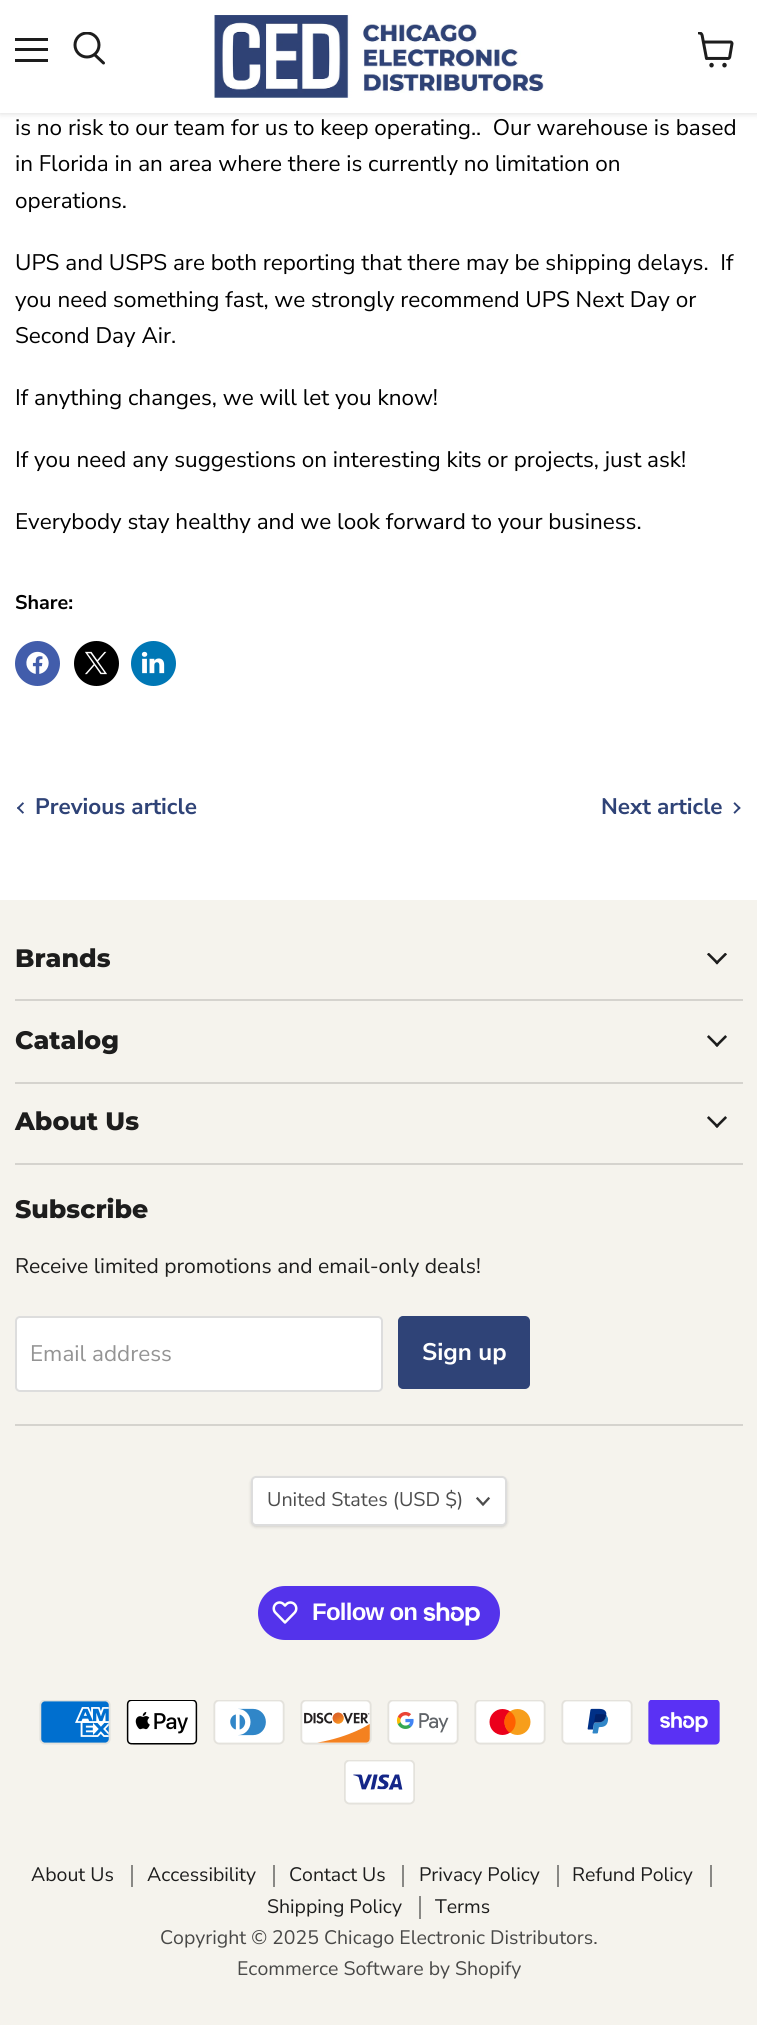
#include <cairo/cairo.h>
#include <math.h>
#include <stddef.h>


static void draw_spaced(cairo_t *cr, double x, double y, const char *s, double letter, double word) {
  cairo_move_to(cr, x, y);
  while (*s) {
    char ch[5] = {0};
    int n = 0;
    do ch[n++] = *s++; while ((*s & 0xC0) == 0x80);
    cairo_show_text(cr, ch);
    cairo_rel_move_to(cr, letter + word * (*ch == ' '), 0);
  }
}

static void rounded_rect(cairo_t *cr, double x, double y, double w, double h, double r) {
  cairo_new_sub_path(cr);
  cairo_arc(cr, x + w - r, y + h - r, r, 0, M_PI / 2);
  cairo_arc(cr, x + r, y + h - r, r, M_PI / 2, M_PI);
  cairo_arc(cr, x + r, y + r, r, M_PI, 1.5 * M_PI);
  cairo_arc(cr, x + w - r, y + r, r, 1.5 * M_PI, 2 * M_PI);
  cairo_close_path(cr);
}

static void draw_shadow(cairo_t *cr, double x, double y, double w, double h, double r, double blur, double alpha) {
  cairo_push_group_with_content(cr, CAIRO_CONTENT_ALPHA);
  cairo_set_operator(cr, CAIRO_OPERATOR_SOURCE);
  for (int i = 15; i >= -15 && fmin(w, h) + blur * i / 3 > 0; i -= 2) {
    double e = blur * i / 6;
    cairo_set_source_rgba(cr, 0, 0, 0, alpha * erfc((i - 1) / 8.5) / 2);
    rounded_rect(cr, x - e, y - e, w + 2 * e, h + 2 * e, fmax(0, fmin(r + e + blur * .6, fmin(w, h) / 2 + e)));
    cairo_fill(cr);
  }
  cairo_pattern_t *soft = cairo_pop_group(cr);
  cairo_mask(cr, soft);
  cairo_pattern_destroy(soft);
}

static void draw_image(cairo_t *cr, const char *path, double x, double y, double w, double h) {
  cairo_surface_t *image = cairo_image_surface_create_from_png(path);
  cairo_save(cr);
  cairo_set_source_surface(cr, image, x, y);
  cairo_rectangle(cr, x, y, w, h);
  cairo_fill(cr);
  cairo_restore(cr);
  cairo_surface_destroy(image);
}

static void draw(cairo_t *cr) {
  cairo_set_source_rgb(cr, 1, 1, 1);
  cairo_paint(cr);
  cairo_set_source_rgb(cr, 128 / 255.0, 128 / 255.0, 128 / 255.0);
  draw_shadow(cr, 0, 2, 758, 112, 0, 3, 0.25);
  cairo_set_source_rgb(cr, 1, 1, 1);
  cairo_rectangle(cr, 0, 0, 757, 113);
  cairo_fill(cr);
  cairo_set_source_rgb(cr, 29 / 255.0, 29 / 255.0, 29 / 255.0);
  cairo_rectangle(cr, 15, 38, 33, 3);
  cairo_fill(cr);
  cairo_rectangle(cr, 15, 48, 33, 3);
  cairo_fill(cr);
  cairo_rectangle(cr, 15, 59, 33, 3);
  cairo_fill(cr);
  cairo_new_path(cr);
  cairo_move_to(cr, 103.5, 63);
  cairo_line_to(cr, 95, 55);
  cairo_set_line_width(cr, 3);
  cairo_set_line_cap(cr, CAIRO_LINE_CAP_ROUND);
  cairo_stroke(cr);
  cairo_save(cr);
  cairo_rectangle(cr, 72, 32, 35, 36);
  cairo_clip(cr);
  cairo_arc(cr, 87, 45, 12, 0, 2 * M_PI);
  cairo_set_line_cap(cr, CAIRO_LINE_CAP_BUTT);
  cairo_stroke(cr);
  cairo_restore(cr);
  draw_image(cr, "images/1.png", 214, 15, 330, 83);
  draw_image(cr, "images/2.png", 698, 32, 36, 36);
  cairo_set_source_rgb(cr, 66 / 255.0, 93 / 255.0, 171 / 255.0);
  cairo_arc(cr, 37.5, 663.5, 22.5, 0, 2 * M_PI);
  cairo_fill(cr);
  draw_image(cr, "images/3.png", 26, 651, 23, 23);
  cairo_set_source_rgb(cr, 0, 0, 0);
  cairo_arc(cr, 96.5, 663.5, 22.5, 0, 2 * M_PI);
  cairo_fill(cr);
  draw_image(cr, "images/4.png", 85, 651, 22, 24);
  cairo_set_source_rgb(cr, 0, 119 / 255.0, 181 / 255.0);
  cairo_arc(cr, 153.5, 663.5, 22.5, 0, 2 * M_PI);
  cairo_fill(cr);
  draw_image(cr, "images/5.png", 141, 651, 24, 23);
  draw_image(cr, "images/6.png", 17, 802, 7, 12);
  draw_image(cr, "images/7.png", 733, 802, 8, 12);
  cairo_set_source_rgb(cr, 245 / 255.0, 243 / 255.0, 237 / 255.0);
  cairo_rectangle(cr, 0, 900, 757, 1125);
  cairo_fill(cr);
  cairo_set_source_rgb(cr, 213 / 255.0, 211 / 255.0, 206 / 255.0);
  cairo_rectangle(cr, 15, 999, 728, 2);
  cairo_fill(cr);
  draw_image(cr, "images/8.png", 707, 953, 20, 12);
  cairo_rectangle(cr, 15, 1082, 728, 2);
  cairo_fill(cr);
  draw_image(cr, "images/9.png", 707, 1035, 20, 12);
  cairo_rectangle(cr, 15, 1163, 728, 2);
  cairo_fill(cr);
  draw_image(cr, "images/9.png", 707, 1116, 20, 12);
  cairo_rectangle(cr, 15, 1424, 728, 2);
  cairo_fill(cr);
  cairo_set_source_rgb(cr, 1, 1, 1);
  rounded_rect(cr, 16, 1317, 366, 74, 4);
  cairo_fill_preserve(cr);
  cairo_set_source_rgb(cr, 221 / 255.0, 221 / 255.0, 221 / 255.0);
  cairo_set_line_width(cr, 2);
  cairo_set_line_cap(cr, CAIRO_LINE_CAP_BUTT);
  cairo_stroke(cr);
  cairo_set_source_rgb(cr, 47 / 255.0, 67 / 255.0, 119 / 255.0);
  rounded_rect(cr, 399, 1317, 130, 71, 4);
  cairo_fill_preserve(cr);
  cairo_stroke(cr);
  cairo_set_source_rgb(cr, 0, 0, 0);
  draw_shadow(cr, 251, 1478, 256, 49, 5, 1.5, 0.15);
  cairo_set_source_rgb(cr, 1, 1, 1);
  rounded_rect(cr, 252, 1477, 254, 48, 4);
  cairo_fill_preserve(cr);
  cairo_set_source_rgb(cr, 221 / 255.0, 221 / 255.0, 221 / 255.0);
  cairo_stroke(cr);
  cairo_new_path(cr);
  cairo_move_to(cr, 483, 1504.5);
  cairo_line_to(cr, 488.5, 1498.5);
  cairo_move_to(cr, 483, 1504.5);
  cairo_line_to(cr, 477.5, 1498.5);
  cairo_set_source_rgb(cr, 77 / 255.0, 77 / 255.0, 77 / 255.0);
  cairo_set_line_width(cr, 2.3);
  cairo_set_line_cap(cr, CAIRO_LINE_CAP_SQUARE);
  cairo_stroke(cr);
  cairo_set_source_rgb(cr, 84 / 255.0, 51 / 255.0, 235 / 255.0);
  rounded_rect(cr, 258, 1586, 242, 54, 27);
  cairo_fill(cr);
  draw_image(cr, "images/10.png", 272, 1601, 26, 23);
  draw_image(cr, "images/11.png", 423, 1602, 57, 24);
  draw_image(cr, "images/12.png", 39, 1700, 72, 45);
  draw_image(cr, "images/13.png", 126, 1700, 72, 45);
  draw_image(cr, "images/14.png", 213, 1700, 72, 45);
  draw_image(cr, "images/15.png", 300, 1700, 72, 45);
  draw_image(cr, "images/16.png", 387, 1700, 72, 45);
  draw_image(cr, "images/17.png", 474, 1700, 72, 45);
  draw_image(cr, "images/18.png", 561, 1700, 72, 45);
  draw_image(cr, "images/19.png", 648, 1700, 72, 45);
  draw_image(cr, "images/20.png", 344, 1760, 71, 45);
  cairo_set_source_rgb(cr, 137 / 255.0, 136 / 255.0, 133 / 255.0);
  cairo_rectangle(cr, 131, 1865, 2, 22);
  cairo_fill(cr);
  cairo_rectangle(cr, 273, 1865, 2, 22);
  cairo_fill(cr);
  cairo_rectangle(cr, 402, 1865, 2, 22);
  cairo_fill(cr);
  cairo_rectangle(cr, 557, 1865, 2, 22);
  cairo_fill(cr);
  cairo_rectangle(cr, 710, 1865, 2, 22);
  cairo_fill(cr);
  cairo_rectangle(cr, 419, 1896, 2, 23);
  cairo_fill(cr);
  cairo_select_font_face(cr, "Nunito Sans", CAIRO_FONT_SLANT_NORMAL, CAIRO_FONT_WEIGHT_NORMAL);
  cairo_set_font_size(cr, 22.5);
  cairo_set_source_rgb(cr, 0, 0, 0);
  cairo_move_to(cr, 15, 135);
  cairo_show_text(cr, "is no risk to our team for us to keep operating..  Our warehouse is based");
  cairo_move_to(cr, 15, 171);
  cairo_show_text(cr, "in Florida in an area where there is currently no limitation on");
  cairo_move_to(cr, 15, 208);
  cairo_show_text(cr, "operations.");
  cairo_move_to(cr, 15, 270);
  cairo_show_text(cr, "UPS and USPS are both reporting that there may be shipping delays.  If");
  cairo_move_to(cr, 15, 307);
  cairo_show_text(cr, "you need something fast, we strongly recommend UPS Next Day or");
  cairo_move_to(cr, 15, 343);
  cairo_show_text(cr, "Second Day Air.");
  cairo_move_to(cr, 15, 405);
  cairo_show_text(cr, "If anything changes, we will let you know!");
  cairo_move_to(cr, 15, 467);
  cairo_show_text(cr, "If you need any suggestions on interesting kits or projects, just ask!");
  cairo_move_to(cr, 15, 529);
  cairo_show_text(cr, "Everybody stay healthy and we look forward to your business.");
  cairo_select_font_face(cr, "Nunito Sans", CAIRO_FONT_SLANT_NORMAL, CAIRO_FONT_WEIGHT_BOLD);
  cairo_set_font_size(cr, 19.75);
  cairo_move_to(cr, 15, 609);
  cairo_show_text(cr, "Share:");
  cairo_set_font_size(cr, 22.5);
  cairo_set_source_rgb(cr, 47 / 255.0, 67 / 255.0, 119 / 255.0);
  cairo_move_to(cr, 35, 814);
  cairo_show_text(cr, "Previous article");
  cairo_move_to(cr, 601, 814);
  cairo_show_text(cr, "Next article");
  cairo_select_font_face(cr, "Montserrat ExtraBold", CAIRO_FONT_SLANT_NORMAL, CAIRO_FONT_WEIGHT_NORMAL);
  cairo_set_font_size(cr, 25.25);
  cairo_set_source_rgb(cr, 29 / 255.0, 29 / 255.0, 29 / 255.0);
  cairo_move_to(cr, 15, 967);
  cairo_show_text(cr, "Brands");
  cairo_move_to(cr, 15, 1049);
  cairo_show_text(cr, "Catalog");
  cairo_move_to(cr, 15, 1130);
  cairo_show_text(cr, "About Us");
  cairo_move_to(cr, 15, 1218);
  cairo_show_text(cr, "Subscribe");
  cairo_select_font_face(cr, "Nunito Sans", CAIRO_FONT_SLANT_NORMAL, CAIRO_FONT_WEIGHT_NORMAL);
  cairo_set_font_size(cr, 21.1);
  cairo_move_to(cr, 15, 1273);
  cairo_show_text(cr, "Receive limited promotions and email-only deals!");
  cairo_set_font_size(cr, 22.5);
  cairo_set_source_rgb(cr, 148 / 255.0, 148 / 255.0, 148 / 255.0);
  cairo_move_to(cr, 30, 1361);
  cairo_show_text(cr, "Email address");
  cairo_select_font_face(cr, "Nunito Sans", CAIRO_FONT_SLANT_NORMAL, CAIRO_FONT_WEIGHT_BOLD);
  cairo_set_font_size(cr, 24);
  cairo_set_source_rgb(cr, 1, 1, 1);
  cairo_move_to(cr, 422, 1360);
  cairo_show_text(cr, "Sign up");
  cairo_select_font_face(cr, "Nunito Sans", CAIRO_FONT_SLANT_NORMAL, CAIRO_FONT_WEIGHT_NORMAL);
  cairo_set_font_size(cr, 19.75);
  cairo_set_source_rgb(cr, 77 / 255.0, 77 / 255.0, 77 / 255.0);
  cairo_move_to(cr, 267, 1506);
  cairo_show_text(cr, "United States (USD $)");
  cairo_select_font_face(cr, "Liberation Sans", CAIRO_FONT_SLANT_NORMAL, CAIRO_FONT_WEIGHT_BOLD);
  cairo_set_font_size(cr, 24);
  cairo_set_source_rgb(cr, 1, 1, 1);
  draw_spaced(cr, 312, 1620, "Follow on", -0.75, 0);
  cairo_select_font_face(cr, "Nunito Sans", CAIRO_FONT_SLANT_NORMAL, CAIRO_FONT_WEIGHT_NORMAL);
  cairo_set_font_size(cr, 19.5);
  cairo_set_source_rgb(cr, 29 / 255.0, 29 / 255.0, 29 / 255.0);
  cairo_move_to(cr, 31, 1881);
  cairo_show_text(cr, "About Us");
  cairo_move_to(cr, 147, 1881);
  cairo_show_text(cr, "Accessibility");
  cairo_move_to(cr, 289, 1881);
  cairo_show_text(cr, "Contact Us");
  cairo_move_to(cr, 419, 1881);
  cairo_show_text(cr, "Privacy Policy");
  cairo_move_to(cr, 572, 1881);
  cairo_show_text(cr, "Refund Policy");
  cairo_move_to(cr, 267, 1913);
  cairo_show_text(cr, "Shipping Policy");
  cairo_move_to(cr, 435, 1913);
  cairo_show_text(cr, "Terms");
  cairo_set_source_rgb(cr, 72 / 255.0, 72 / 255.0, 71 / 255.0);
  cairo_move_to(cr, 160, 1944);
  cairo_show_text(cr, "Copyright © 2025 Chicago Electronic Distributors.");
  cairo_move_to(cr, 237, 1975);
  cairo_show_text(cr, "Ecommerce Software by Shopify");
}

int main(void) {
  cairo_surface_t *surface = cairo_image_surface_create(CAIRO_FORMAT_RGB24, 757, 2025);
  cairo_t *cr = cairo_create(surface);
  cairo_font_options_t *options = cairo_font_options_create();
  cairo_font_options_set_hint_metrics(options, CAIRO_HINT_METRICS_OFF);
  cairo_font_options_set_hint_style(options, CAIRO_HINT_STYLE_NONE);
  cairo_set_font_options(cr, options);
  cairo_set_miter_limit(cr, 4);
  draw(cr);
  cairo_surface_write_to_png(surface, "out.png");
  cairo_font_options_destroy(options);
  cairo_destroy(cr);
  cairo_surface_destroy(surface);
  return 0;
}
